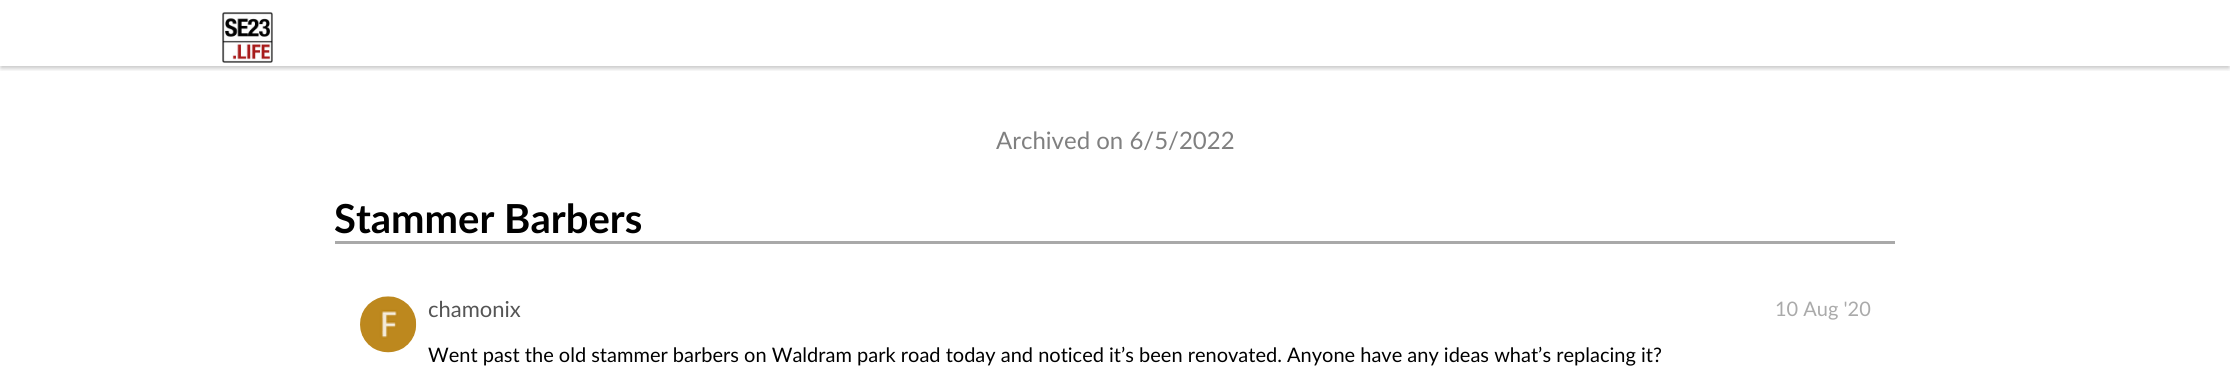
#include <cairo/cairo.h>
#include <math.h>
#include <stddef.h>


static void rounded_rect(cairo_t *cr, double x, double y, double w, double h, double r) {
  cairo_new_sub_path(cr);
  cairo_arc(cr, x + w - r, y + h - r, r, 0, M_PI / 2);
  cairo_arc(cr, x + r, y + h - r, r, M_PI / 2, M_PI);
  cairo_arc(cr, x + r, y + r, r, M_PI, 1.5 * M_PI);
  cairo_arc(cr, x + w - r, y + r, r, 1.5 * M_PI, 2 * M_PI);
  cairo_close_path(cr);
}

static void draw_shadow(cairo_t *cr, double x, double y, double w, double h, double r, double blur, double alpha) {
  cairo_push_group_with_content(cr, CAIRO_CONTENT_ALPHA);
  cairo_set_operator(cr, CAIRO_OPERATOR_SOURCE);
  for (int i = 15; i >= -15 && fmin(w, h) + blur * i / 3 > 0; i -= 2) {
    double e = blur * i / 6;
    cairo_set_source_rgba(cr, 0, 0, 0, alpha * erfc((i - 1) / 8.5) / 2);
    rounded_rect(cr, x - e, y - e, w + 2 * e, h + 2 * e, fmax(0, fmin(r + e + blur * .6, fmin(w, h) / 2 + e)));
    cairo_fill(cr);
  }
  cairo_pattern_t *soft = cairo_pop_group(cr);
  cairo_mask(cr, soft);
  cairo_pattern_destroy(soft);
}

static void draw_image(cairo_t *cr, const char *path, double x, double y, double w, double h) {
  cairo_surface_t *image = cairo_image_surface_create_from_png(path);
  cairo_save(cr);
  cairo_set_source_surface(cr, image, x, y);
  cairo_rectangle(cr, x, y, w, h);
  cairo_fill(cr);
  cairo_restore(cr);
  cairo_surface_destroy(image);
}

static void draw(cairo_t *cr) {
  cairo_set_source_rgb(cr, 1, 1, 1);
  cairo_paint(cr);
  cairo_save(cr);
  cairo_rectangle(cr, 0, 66, 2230, 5);
  cairo_clip(cr);
  cairo_set_source_rgb(cr, 0, 0, 0);
  draw_shadow(cr, 1, 4, 2228, 64, 0, 2.5, 0.25);
  cairo_restore(cr);
  draw_image(cr, "images/1.png", 222, 12, 51, 51);
  cairo_set_source_rgb(cr, 169 / 255.0, 169 / 255.0, 169 / 255.0);
  cairo_rectangle(cr, 335, 241, 1560, 3);
  cairo_fill(cr);
  draw_image(cr, "images/2.png", 360, 296, 57, 57);
  cairo_select_font_face(cr, "Lato", CAIRO_FONT_SLANT_NORMAL, CAIRO_FONT_WEIGHT_NORMAL);
  cairo_set_font_size(cr, 24);
  cairo_set_source_rgb(cr, 128 / 255.0, 128 / 255.0, 128 / 255.0);
  cairo_move_to(cr, 996, 149);
  cairo_show_text(cr, "Archived on 6/5/2022");
  cairo_select_font_face(cr, "Lato", CAIRO_FONT_SLANT_NORMAL, CAIRO_FONT_WEIGHT_BOLD);
  cairo_set_font_size(cr, 40);
  cairo_set_source_rgb(cr, 0, 0, 0);
  cairo_move_to(cr, 334, 233);
  cairo_show_text(cr, "Stammer Barbers");
  cairo_select_font_face(cr, "Lato", CAIRO_FONT_SLANT_NORMAL, CAIRO_FONT_WEIGHT_NORMAL);
  cairo_set_font_size(cr, 22);
  cairo_set_source_rgb(cr, 85 / 255.0, 85 / 255.0, 85 / 255.0);
  cairo_move_to(cr, 428, 317);
  cairo_show_text(cr, "chamonix");
  cairo_set_font_size(cr, 20);
  cairo_set_source_rgb(cr, 170 / 255.0, 170 / 255.0, 170 / 255.0);
  cairo_move_to(cr, 1775, 316);
  cairo_show_text(cr, "10 Aug '20");
  cairo_set_source_rgb(cr, 0, 0, 0);
  cairo_move_to(cr, 428, 362);
  cairo_show_text(cr, "Went past the old stammer barbers on Waldram park road today and noticed it’s been renovated. Anyone have any ideas what’s replacing it?");
}

int main(void) {
  cairo_surface_t *surface = cairo_image_surface_create(CAIRO_FORMAT_RGB24, 2230, 374);
  cairo_t *cr = cairo_create(surface);
  cairo_font_options_t *options = cairo_font_options_create();
  cairo_font_options_set_hint_metrics(options, CAIRO_HINT_METRICS_OFF);
  cairo_font_options_set_hint_style(options, CAIRO_HINT_STYLE_NONE);
  cairo_set_font_options(cr, options);
  cairo_set_miter_limit(cr, 4);
  draw(cr);
  cairo_surface_write_to_png(surface, "out.png");
  cairo_font_options_destroy(options);
  cairo_destroy(cr);
  cairo_surface_destroy(surface);
  return 0;
}
